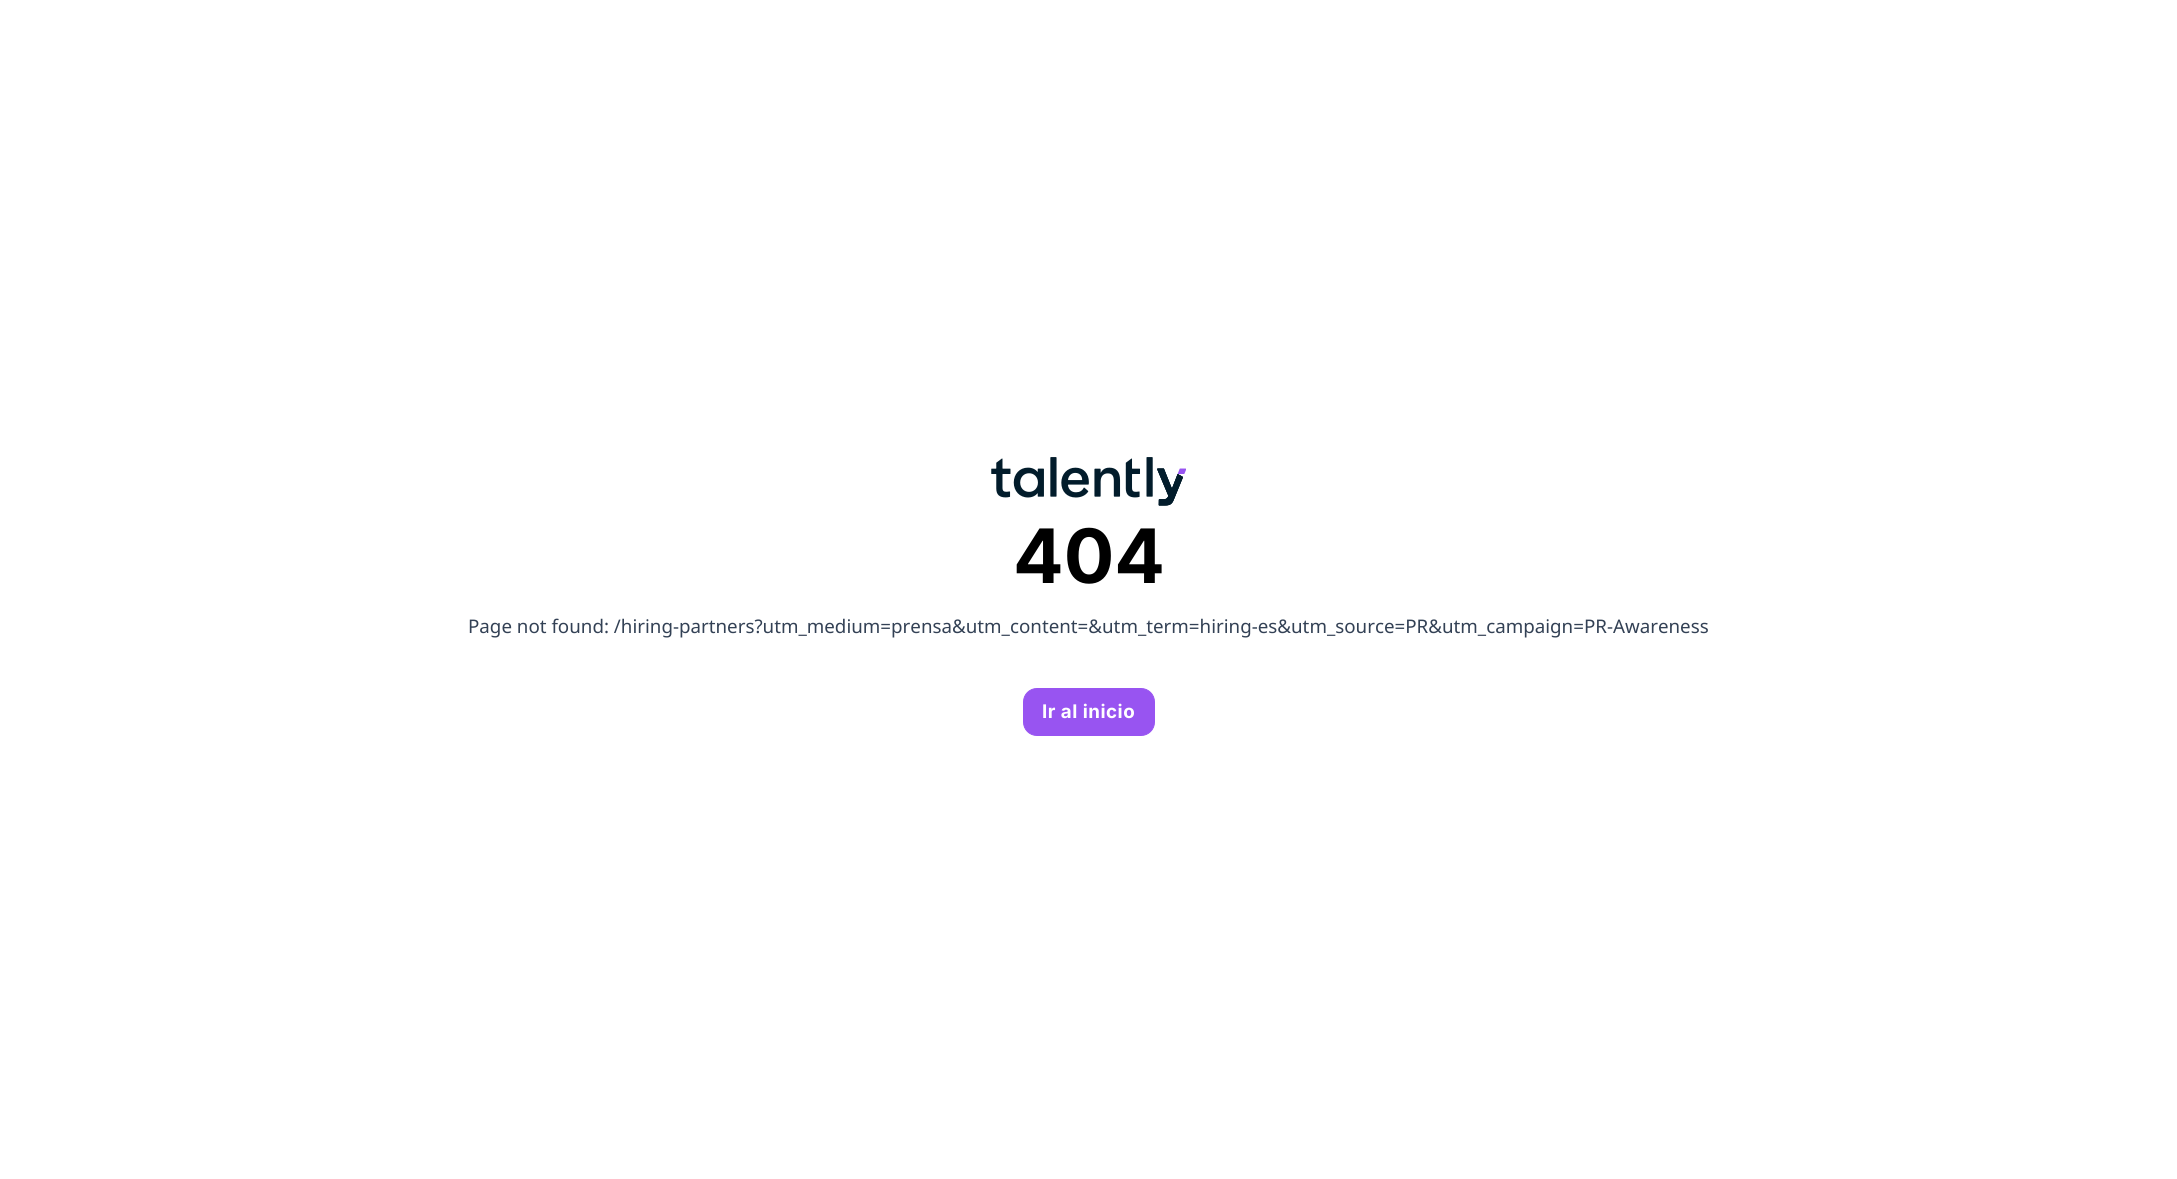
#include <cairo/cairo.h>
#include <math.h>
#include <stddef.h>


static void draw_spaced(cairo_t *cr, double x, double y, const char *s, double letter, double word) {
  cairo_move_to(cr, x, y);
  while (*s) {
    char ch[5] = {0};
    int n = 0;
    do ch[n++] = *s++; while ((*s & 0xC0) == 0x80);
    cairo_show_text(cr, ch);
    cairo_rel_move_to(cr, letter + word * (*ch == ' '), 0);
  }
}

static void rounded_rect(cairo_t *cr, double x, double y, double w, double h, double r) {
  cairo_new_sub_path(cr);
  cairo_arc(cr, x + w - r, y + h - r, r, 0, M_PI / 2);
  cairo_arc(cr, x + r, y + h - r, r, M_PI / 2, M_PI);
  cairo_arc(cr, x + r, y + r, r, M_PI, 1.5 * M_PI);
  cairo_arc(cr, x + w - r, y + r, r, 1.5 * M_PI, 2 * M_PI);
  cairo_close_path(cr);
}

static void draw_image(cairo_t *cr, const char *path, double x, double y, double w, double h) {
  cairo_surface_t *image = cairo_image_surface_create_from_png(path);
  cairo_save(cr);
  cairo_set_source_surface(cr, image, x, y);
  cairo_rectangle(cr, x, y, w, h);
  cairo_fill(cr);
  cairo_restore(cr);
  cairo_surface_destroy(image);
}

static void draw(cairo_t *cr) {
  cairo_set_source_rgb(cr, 1, 1, 1);
  cairo_paint(cr);
  draw_image(cr, "images/1.png", 991, 457, 195, 49);
  cairo_set_source_rgb(cr, 152 / 255.0, 84 / 255.0, 241 / 255.0);
  rounded_rect(cr, 1023.5, 688.5, 131, 47, 13.5);
  cairo_fill_preserve(cr);
  cairo_set_line_width(cr, 1);
  cairo_stroke(cr);
  cairo_select_font_face(cr, "Inter", CAIRO_FONT_SLANT_NORMAL, CAIRO_FONT_WEIGHT_BOLD);
  cairo_set_font_size(cr, 75);
  cairo_set_source_rgb(cr, 0, 0, 0);
  cairo_move_to(cr, 1013, 583);
  cairo_show_text(cr, "404");
  cairo_select_font_face(cr, "Noto Sans", CAIRO_FONT_SLANT_NORMAL, CAIRO_FONT_WEIGHT_NORMAL);
  cairo_set_font_size(cr, 18.75);
  cairo_set_source_rgb(cr, 51 / 255.0, 65 / 255.0, 85 / 255.0);
  cairo_move_to(cr, 468, 633);
  cairo_show_text(cr, "Page not found: /hiring-partners?utm_medium=prensa&utm_content=&utm_term=hiring-es&utm_source=PR&utm_campaign=PR-Awareness");
  cairo_select_font_face(cr, "Inter", CAIRO_FONT_SLANT_NORMAL, CAIRO_FONT_WEIGHT_BOLD);
  cairo_set_source_rgb(cr, 1, 1, 1);
  draw_spaced(cr, 1042, 718, "Ir al inicio", 0.5, 0);
}

int main(void) {
  cairo_surface_t *surface = cairo_image_surface_create(CAIRO_FORMAT_RGB24, 2177, 1179);
  cairo_t *cr = cairo_create(surface);
  cairo_font_options_t *options = cairo_font_options_create();
  cairo_font_options_set_hint_metrics(options, CAIRO_HINT_METRICS_OFF);
  cairo_font_options_set_hint_style(options, CAIRO_HINT_STYLE_NONE);
  cairo_set_font_options(cr, options);
  cairo_set_miter_limit(cr, 4);
  draw(cr);
  cairo_surface_write_to_png(surface, "out.png");
  cairo_font_options_destroy(options);
  cairo_destroy(cr);
  cairo_surface_destroy(surface);
  return 0;
}
